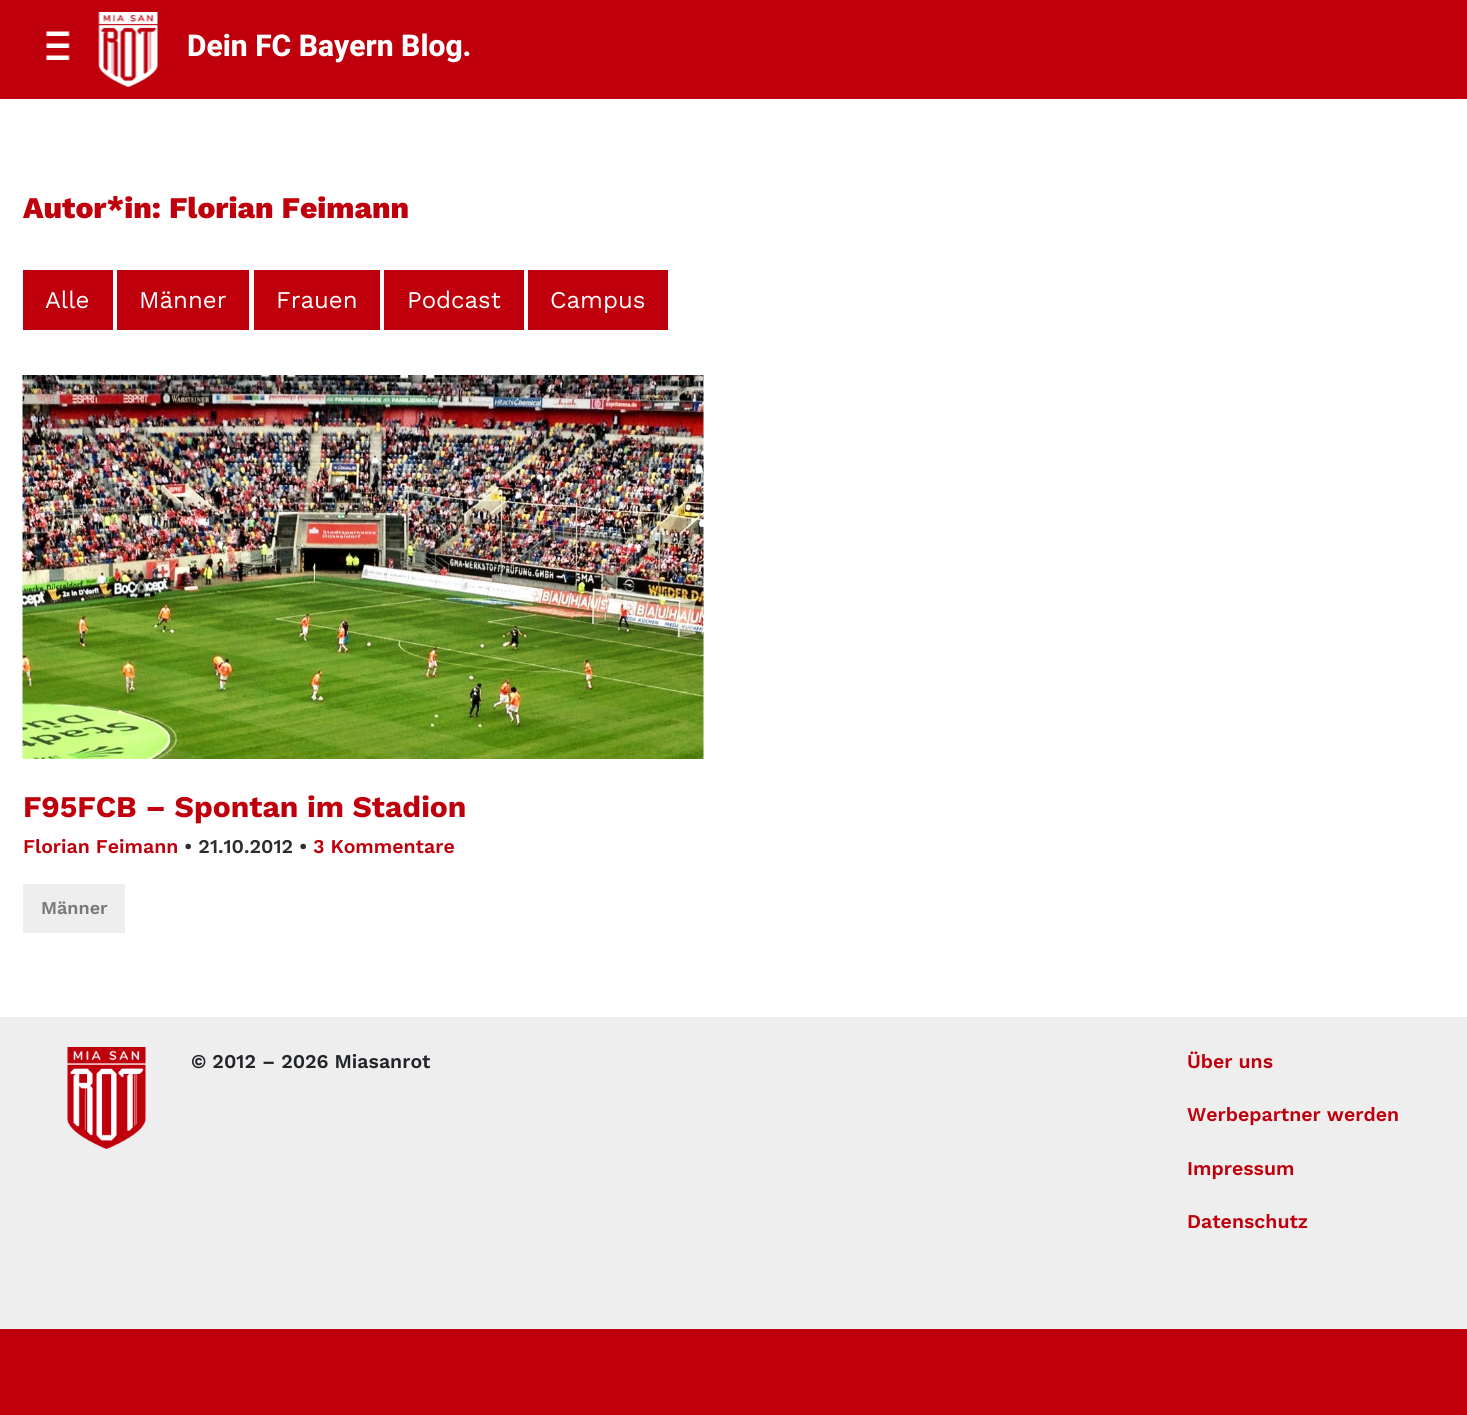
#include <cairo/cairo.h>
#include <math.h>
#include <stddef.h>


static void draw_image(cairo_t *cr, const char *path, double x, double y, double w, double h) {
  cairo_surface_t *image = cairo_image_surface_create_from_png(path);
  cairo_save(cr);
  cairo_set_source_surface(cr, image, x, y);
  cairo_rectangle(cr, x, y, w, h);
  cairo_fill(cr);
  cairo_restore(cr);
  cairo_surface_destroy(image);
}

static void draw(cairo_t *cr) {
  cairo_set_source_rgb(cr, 191 / 255.0, 0, 12 / 255.0);
  cairo_paint(cr);
  draw_image(cr, "images/1.png", 46, 31, 24, 29);
  draw_image(cr, "images/2.png", 98, 12, 60, 75);
  cairo_set_source_rgb(cr, 1, 1, 1);
  cairo_rectangle(cr, 0, 99, 1467, 918);
  cairo_fill(cr);
  cairo_set_source_rgb(cr, 191 / 255.0, 0, 12 / 255.0);
  cairo_rectangle(cr, 23, 270, 90, 60);
  cairo_fill(cr);
  cairo_rectangle(cr, 117, 270, 132, 60);
  cairo_fill(cr);
  cairo_rectangle(cr, 254, 270, 126, 60);
  cairo_fill(cr);
  cairo_rectangle(cr, 384, 270, 140, 60);
  cairo_fill(cr);
  cairo_rectangle(cr, 528, 270, 140, 60);
  cairo_fill(cr);
  draw_image(cr, "images/3.png", 22, 375, 682, 384);
  cairo_set_source_rgb(cr, 239 / 255.0, 238 / 255.0, 238 / 255.0);
  cairo_rectangle(cr, 23, 884, 102, 49);
  cairo_fill(cr);
  cairo_rectangle(cr, 0, 1017, 1467, 312);
  cairo_fill(cr);
  draw_image(cr, "images/4.png", 67, 1047, 79, 102);
  cairo_select_font_face(cr, "Roboto ExtraBold", CAIRO_FONT_SLANT_NORMAL, CAIRO_FONT_WEIGHT_NORMAL);
  cairo_set_font_size(cr, 30);
  cairo_set_source_rgb(cr, 1, 1, 1);
  cairo_move_to(cr, 187, 56);
  cairo_show_text(cr, "Dein FC Bayern Blog.");
  cairo_select_font_face(cr, "Work Sans ExtraBold", CAIRO_FONT_SLANT_NORMAL, CAIRO_FONT_WEIGHT_NORMAL);
  cairo_set_source_rgb(cr, 191 / 255.0, 0, 12 / 255.0);
  cairo_move_to(cr, 23, 218);
  cairo_show_text(cr, "Autor*in: Florian Feimann");
  cairo_select_font_face(cr, "Work Sans", CAIRO_FONT_SLANT_NORMAL, CAIRO_FONT_WEIGHT_NORMAL);
  cairo_set_font_size(cr, 24);
  cairo_set_source_rgb(cr, 1, 1, 1);
  cairo_move_to(cr, 45, 308);
  cairo_show_text(cr, "Alle");
  cairo_move_to(cr, 139, 308);
  cairo_show_text(cr, "Männer");
  cairo_move_to(cr, 276, 308);
  cairo_show_text(cr, "Frauen");
  cairo_move_to(cr, 407, 308);
  cairo_show_text(cr, "Podcast");
  cairo_move_to(cr, 550, 308);
  cairo_show_text(cr, "Campus");
  cairo_select_font_face(cr, "Work Sans", CAIRO_FONT_SLANT_NORMAL, CAIRO_FONT_WEIGHT_BOLD);
  cairo_set_font_size(cr, 30);
  cairo_set_source_rgb(cr, 191 / 255.0, 0, 12 / 255.0);
  cairo_move_to(cr, 23, 817);
  cairo_show_text(cr, "F95FCB – Spontan im Stadion");
  cairo_select_font_face(cr, "Work Sans SemiBold", CAIRO_FONT_SLANT_NORMAL, CAIRO_FONT_WEIGHT_NORMAL);
  cairo_set_font_size(cr, 19.5);
  cairo_move_to(cr, 23, 853);
  cairo_show_text(cr, "Florian Feimann");
  cairo_set_source_rgb(cr, 48 / 255.0, 45 / 255.0, 45 / 255.0);
  cairo_move_to(cr, 184, 853);
  cairo_show_text(cr, "• 21.10.2012 •");
  cairo_set_source_rgb(cr, 191 / 255.0, 0, 12 / 255.0);
  cairo_move_to(cr, 313, 853);
  cairo_show_text(cr, "3 Kommentare");
  cairo_set_font_size(cr, 18);
  cairo_set_source_rgb(cr, 121 / 255.0, 121 / 255.0, 121 / 255.0);
  cairo_move_to(cr, 41, 914);
  cairo_show_text(cr, "Männer");
  cairo_set_font_size(cr, 19.5);
  cairo_set_source_rgb(cr, 33 / 255.0, 37 / 255.0, 41 / 255.0);
  cairo_move_to(cr, 191, 1068);
  cairo_show_text(cr, "© 2012 – 2026 Miasanrot");
  cairo_set_source_rgb(cr, 191 / 255.0, 0, 12 / 255.0);
  cairo_move_to(cr, 1187, 1068);
  cairo_show_text(cr, "Über uns");
  cairo_move_to(cr, 1187, 1121);
  cairo_show_text(cr, "Werbepartner werden");
  cairo_move_to(cr, 1187, 1175);
  cairo_show_text(cr, "Impressum");
  cairo_move_to(cr, 1187, 1228);
  cairo_show_text(cr, "Datenschutz");
}

int main(void) {
  cairo_surface_t *surface = cairo_image_surface_create(CAIRO_FORMAT_RGB24, 1467, 1415);
  cairo_t *cr = cairo_create(surface);
  cairo_font_options_t *options = cairo_font_options_create();
  cairo_font_options_set_hint_metrics(options, CAIRO_HINT_METRICS_OFF);
  cairo_font_options_set_hint_style(options, CAIRO_HINT_STYLE_NONE);
  cairo_set_font_options(cr, options);
  cairo_set_miter_limit(cr, 4);
  draw(cr);
  cairo_surface_write_to_png(surface, "out.png");
  cairo_font_options_destroy(options);
  cairo_destroy(cr);
  cairo_surface_destroy(surface);
  return 0;
}
